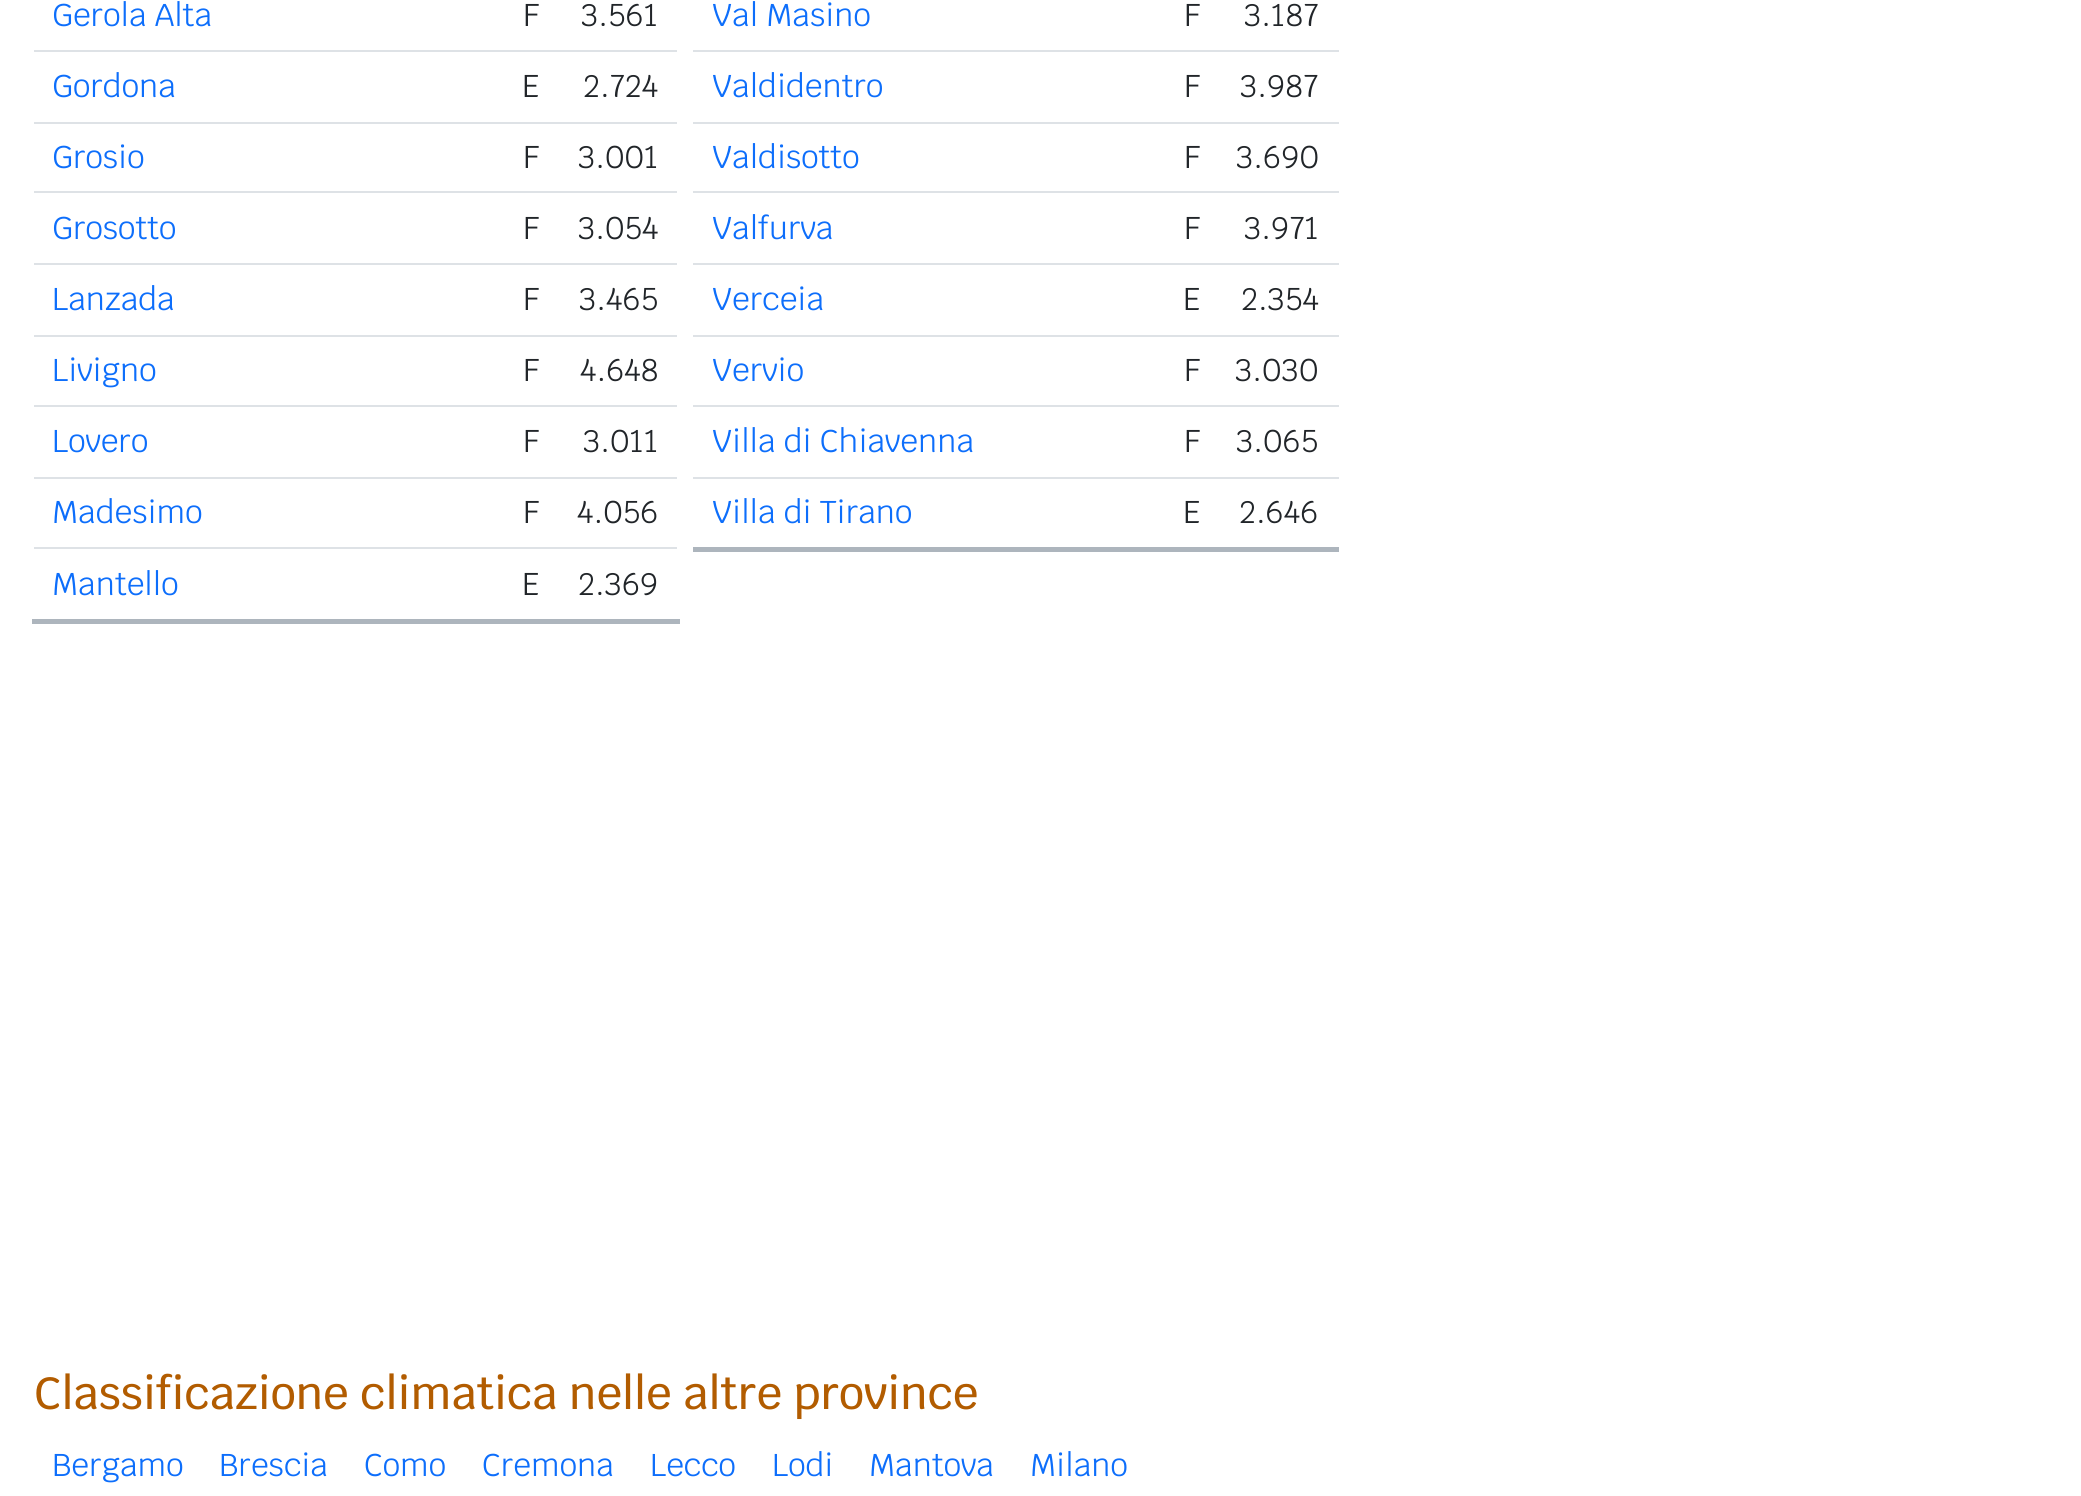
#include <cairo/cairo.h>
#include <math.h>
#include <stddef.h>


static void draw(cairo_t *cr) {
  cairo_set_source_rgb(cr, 1, 1, 1);
  cairo_paint(cr);
  cairo_set_source_rgb(cr, 222 / 255.0, 226 / 255.0, 230 / 255.0);
  cairo_rectangle(cr, 34, 50, 643, 2);
  cairo_fill(cr);
  cairo_rectangle(cr, 34, 122, 643, 2);
  cairo_fill(cr);
  cairo_rectangle(cr, 34, 191, 643, 2);
  cairo_fill(cr);
  cairo_rectangle(cr, 34, 263, 643, 2);
  cairo_fill(cr);
  cairo_rectangle(cr, 34, 335, 643, 2);
  cairo_fill(cr);
  cairo_rectangle(cr, 34, 405, 643, 2);
  cairo_fill(cr);
  cairo_rectangle(cr, 34, 477, 643, 2);
  cairo_fill(cr);
  cairo_set_source_rgb(cr, 173 / 255.0, 181 / 255.0, 189 / 255.0);
  cairo_rectangle(cr, 32, 619, 648, 5);
  cairo_fill(cr);
  cairo_set_source_rgb(cr, 222 / 255.0, 226 / 255.0, 230 / 255.0);
  cairo_rectangle(cr, 34, 547, 643, 2);
  cairo_fill(cr);
  cairo_rectangle(cr, 693, 50, 646, 2);
  cairo_fill(cr);
  cairo_rectangle(cr, 693, 122, 646, 2);
  cairo_fill(cr);
  cairo_rectangle(cr, 693, 191, 646, 2);
  cairo_fill(cr);
  cairo_rectangle(cr, 693, 263, 646, 2);
  cairo_fill(cr);
  cairo_rectangle(cr, 693, 335, 646, 2);
  cairo_fill(cr);
  cairo_rectangle(cr, 693, 405, 646, 2);
  cairo_fill(cr);
  cairo_set_source_rgb(cr, 173 / 255.0, 181 / 255.0, 189 / 255.0);
  cairo_rectangle(cr, 693, 547, 646, 5);
  cairo_fill(cr);
  cairo_set_source_rgb(cr, 222 / 255.0, 226 / 255.0, 230 / 255.0);
  cairo_rectangle(cr, 693, 477, 646, 2);
  cairo_fill(cr);
  cairo_select_font_face(cr, "Krub", CAIRO_FONT_SLANT_NORMAL, CAIRO_FONT_WEIGHT_NORMAL);
  cairo_set_font_size(cr, 31.5);
  cairo_set_source_rgb(cr, 13 / 255.0, 110 / 255.0, 251 / 255.0);
  cairo_move_to(cr, 52, 26);
  cairo_show_text(cr, "Gerola Alta");
  cairo_set_source_rgb(cr, 33 / 255.0, 37 / 255.0, 41 / 255.0);
  cairo_move_to(cr, 523, 26);
  cairo_show_text(cr, "F");
  cairo_move_to(cr, 581, 26);
  cairo_show_text(cr, "3.561");
  cairo_set_source_rgb(cr, 13 / 255.0, 110 / 255.0, 251 / 255.0);
  cairo_move_to(cr, 52, 97);
  cairo_show_text(cr, "Gordona");
  cairo_set_source_rgb(cr, 33 / 255.0, 37 / 255.0, 41 / 255.0);
  cairo_move_to(cr, 522, 97);
  cairo_show_text(cr, "E");
  cairo_move_to(cr, 583, 97);
  cairo_show_text(cr, "2.724");
  cairo_set_source_rgb(cr, 13 / 255.0, 110 / 255.0, 251 / 255.0);
  cairo_move_to(cr, 52, 168);
  cairo_show_text(cr, "Grosio");
  cairo_set_source_rgb(cr, 33 / 255.0, 37 / 255.0, 41 / 255.0);
  cairo_move_to(cr, 523, 168);
  cairo_show_text(cr, "F");
  cairo_move_to(cr, 578, 168);
  cairo_show_text(cr, "3.001");
  cairo_set_source_rgb(cr, 13 / 255.0, 110 / 255.0, 251 / 255.0);
  cairo_move_to(cr, 52, 239);
  cairo_show_text(cr, "Grosotto");
  cairo_set_source_rgb(cr, 33 / 255.0, 37 / 255.0, 41 / 255.0);
  cairo_move_to(cr, 523, 239);
  cairo_show_text(cr, "F");
  cairo_move_to(cr, 578, 239);
  cairo_show_text(cr, "3.054");
  cairo_set_source_rgb(cr, 13 / 255.0, 110 / 255.0, 251 / 255.0);
  cairo_move_to(cr, 52, 310);
  cairo_show_text(cr, "Lanzada");
  cairo_set_source_rgb(cr, 33 / 255.0, 37 / 255.0, 41 / 255.0);
  cairo_move_to(cr, 523, 310);
  cairo_show_text(cr, "F");
  cairo_move_to(cr, 579, 310);
  cairo_show_text(cr, "3.465");
  cairo_set_source_rgb(cr, 13 / 255.0, 110 / 255.0, 251 / 255.0);
  cairo_move_to(cr, 52, 381);
  cairo_show_text(cr, "Livigno");
  cairo_set_source_rgb(cr, 33 / 255.0, 37 / 255.0, 41 / 255.0);
  cairo_move_to(cr, 523, 381);
  cairo_show_text(cr, "F");
  cairo_move_to(cr, 580, 381);
  cairo_show_text(cr, "4.648");
  cairo_set_source_rgb(cr, 13 / 255.0, 110 / 255.0, 251 / 255.0);
  cairo_move_to(cr, 52, 452);
  cairo_show_text(cr, "Lovero");
  cairo_set_source_rgb(cr, 33 / 255.0, 37 / 255.0, 41 / 255.0);
  cairo_move_to(cr, 523, 452);
  cairo_show_text(cr, "F");
  cairo_move_to(cr, 583, 452);
  cairo_show_text(cr, "3.011");
  cairo_set_source_rgb(cr, 13 / 255.0, 110 / 255.0, 251 / 255.0);
  cairo_move_to(cr, 52, 523);
  cairo_show_text(cr, "Madesimo");
  cairo_set_source_rgb(cr, 33 / 255.0, 37 / 255.0, 41 / 255.0);
  cairo_move_to(cr, 523, 523);
  cairo_show_text(cr, "F");
  cairo_move_to(cr, 577, 523);
  cairo_show_text(cr, "4.056");
  cairo_set_source_rgb(cr, 13 / 255.0, 110 / 255.0, 251 / 255.0);
  cairo_move_to(cr, 52, 595);
  cairo_show_text(cr, "Mantello");
  cairo_set_source_rgb(cr, 33 / 255.0, 37 / 255.0, 41 / 255.0);
  cairo_move_to(cr, 522, 595);
  cairo_show_text(cr, "E");
  cairo_move_to(cr, 578, 595);
  cairo_show_text(cr, "2.369");
  cairo_set_source_rgb(cr, 13 / 255.0, 110 / 255.0, 251 / 255.0);
  cairo_move_to(cr, 712, 26);
  cairo_show_text(cr, "Val Masino");
  cairo_set_source_rgb(cr, 33 / 255.0, 37 / 255.0, 41 / 255.0);
  cairo_move_to(cr, 1184, 26);
  cairo_show_text(cr, "F");
  cairo_move_to(cr, 1244, 26);
  cairo_show_text(cr, "3.187");
  cairo_set_source_rgb(cr, 13 / 255.0, 110 / 255.0, 251 / 255.0);
  cairo_move_to(cr, 712, 97);
  cairo_show_text(cr, "Valdidentro");
  cairo_set_source_rgb(cr, 33 / 255.0, 37 / 255.0, 41 / 255.0);
  cairo_move_to(cr, 1184, 97);
  cairo_show_text(cr, "F");
  cairo_move_to(cr, 1240, 97);
  cairo_show_text(cr, "3.987");
  cairo_set_source_rgb(cr, 13 / 255.0, 110 / 255.0, 251 / 255.0);
  cairo_move_to(cr, 712, 168);
  cairo_show_text(cr, "Valdisotto");
  cairo_set_source_rgb(cr, 33 / 255.0, 37 / 255.0, 41 / 255.0);
  cairo_move_to(cr, 1184, 168);
  cairo_show_text(cr, "F");
  cairo_move_to(cr, 1236, 168);
  cairo_show_text(cr, "3.690");
  cairo_set_source_rgb(cr, 13 / 255.0, 110 / 255.0, 251 / 255.0);
  cairo_move_to(cr, 712, 239);
  cairo_show_text(cr, "Valfurva");
  cairo_set_source_rgb(cr, 33 / 255.0, 37 / 255.0, 41 / 255.0);
  cairo_move_to(cr, 1184, 239);
  cairo_show_text(cr, "F");
  cairo_move_to(cr, 1244, 239);
  cairo_show_text(cr, "3.971");
  cairo_set_source_rgb(cr, 13 / 255.0, 110 / 255.0, 251 / 255.0);
  cairo_move_to(cr, 712, 310);
  cairo_show_text(cr, "Verceia");
  cairo_set_source_rgb(cr, 33 / 255.0, 37 / 255.0, 41 / 255.0);
  cairo_move_to(cr, 1183, 310);
  cairo_show_text(cr, "E");
  cairo_move_to(cr, 1241, 310);
  cairo_show_text(cr, "2.354");
  cairo_set_source_rgb(cr, 13 / 255.0, 110 / 255.0, 251 / 255.0);
  cairo_move_to(cr, 712, 381);
  cairo_show_text(cr, "Vervio");
  cairo_set_source_rgb(cr, 33 / 255.0, 37 / 255.0, 41 / 255.0);
  cairo_move_to(cr, 1184, 381);
  cairo_show_text(cr, "F");
  cairo_move_to(cr, 1235, 381);
  cairo_show_text(cr, "3.030");
  cairo_set_source_rgb(cr, 13 / 255.0, 110 / 255.0, 251 / 255.0);
  cairo_move_to(cr, 712, 452);
  cairo_show_text(cr, "Villa di Chiavenna");
  cairo_set_source_rgb(cr, 33 / 255.0, 37 / 255.0, 41 / 255.0);
  cairo_move_to(cr, 1184, 452);
  cairo_show_text(cr, "F");
  cairo_move_to(cr, 1236, 452);
  cairo_show_text(cr, "3.065");
  cairo_set_source_rgb(cr, 13 / 255.0, 110 / 255.0, 251 / 255.0);
  cairo_move_to(cr, 712, 523);
  cairo_show_text(cr, "Villa di Tirano");
  cairo_set_source_rgb(cr, 33 / 255.0, 37 / 255.0, 41 / 255.0);
  cairo_move_to(cr, 1183, 523);
  cairo_show_text(cr, "E");
  cairo_move_to(cr, 1239, 523);
  cairo_show_text(cr, "2.646");
  cairo_select_font_face(cr, "Krub Medium", CAIRO_FONT_SLANT_NORMAL, CAIRO_FONT_WEIGHT_NORMAL);
  cairo_set_font_size(cr, 45);
  cairo_set_source_rgb(cr, 178 / 255.0, 92 / 255.0, 0);
  cairo_move_to(cr, 34, 1409);
  cairo_show_text(cr, "Classificazione climatica nelle altre province");
  cairo_select_font_face(cr, "Krub", CAIRO_FONT_SLANT_NORMAL, CAIRO_FONT_WEIGHT_NORMAL);
  cairo_set_font_size(cr, 31.5);
  cairo_set_source_rgb(cr, 13 / 255.0, 110 / 255.0, 251 / 255.0);
  cairo_move_to(cr, 52, 1476);
  cairo_show_text(cr, "Bergamo");
  cairo_move_to(cr, 219, 1476);
  cairo_show_text(cr, "Brescia");
  cairo_move_to(cr, 364, 1476);
  cairo_show_text(cr, "Como");
  cairo_move_to(cr, 482, 1476);
  cairo_show_text(cr, "Cremona");
  cairo_move_to(cr, 650, 1476);
  cairo_show_text(cr, "Lecco");
  cairo_move_to(cr, 772, 1476);
  cairo_show_text(cr, "Lodi");
  cairo_move_to(cr, 869, 1476);
  cairo_show_text(cr, "Mantova");
  cairo_move_to(cr, 1030, 1476);
  cairo_show_text(cr, "Milano");
}

int main(void) {
  cairo_surface_t *surface = cairo_image_surface_create(CAIRO_FORMAT_RGB24, 2081, 1496);
  cairo_t *cr = cairo_create(surface);
  cairo_font_options_t *options = cairo_font_options_create();
  cairo_font_options_set_hint_metrics(options, CAIRO_HINT_METRICS_OFF);
  cairo_font_options_set_hint_style(options, CAIRO_HINT_STYLE_NONE);
  cairo_set_font_options(cr, options);
  cairo_set_miter_limit(cr, 4);
  draw(cr);
  cairo_surface_write_to_png(surface, "out.png");
  cairo_font_options_destroy(options);
  cairo_destroy(cr);
  cairo_surface_destroy(surface);
  return 0;
}
